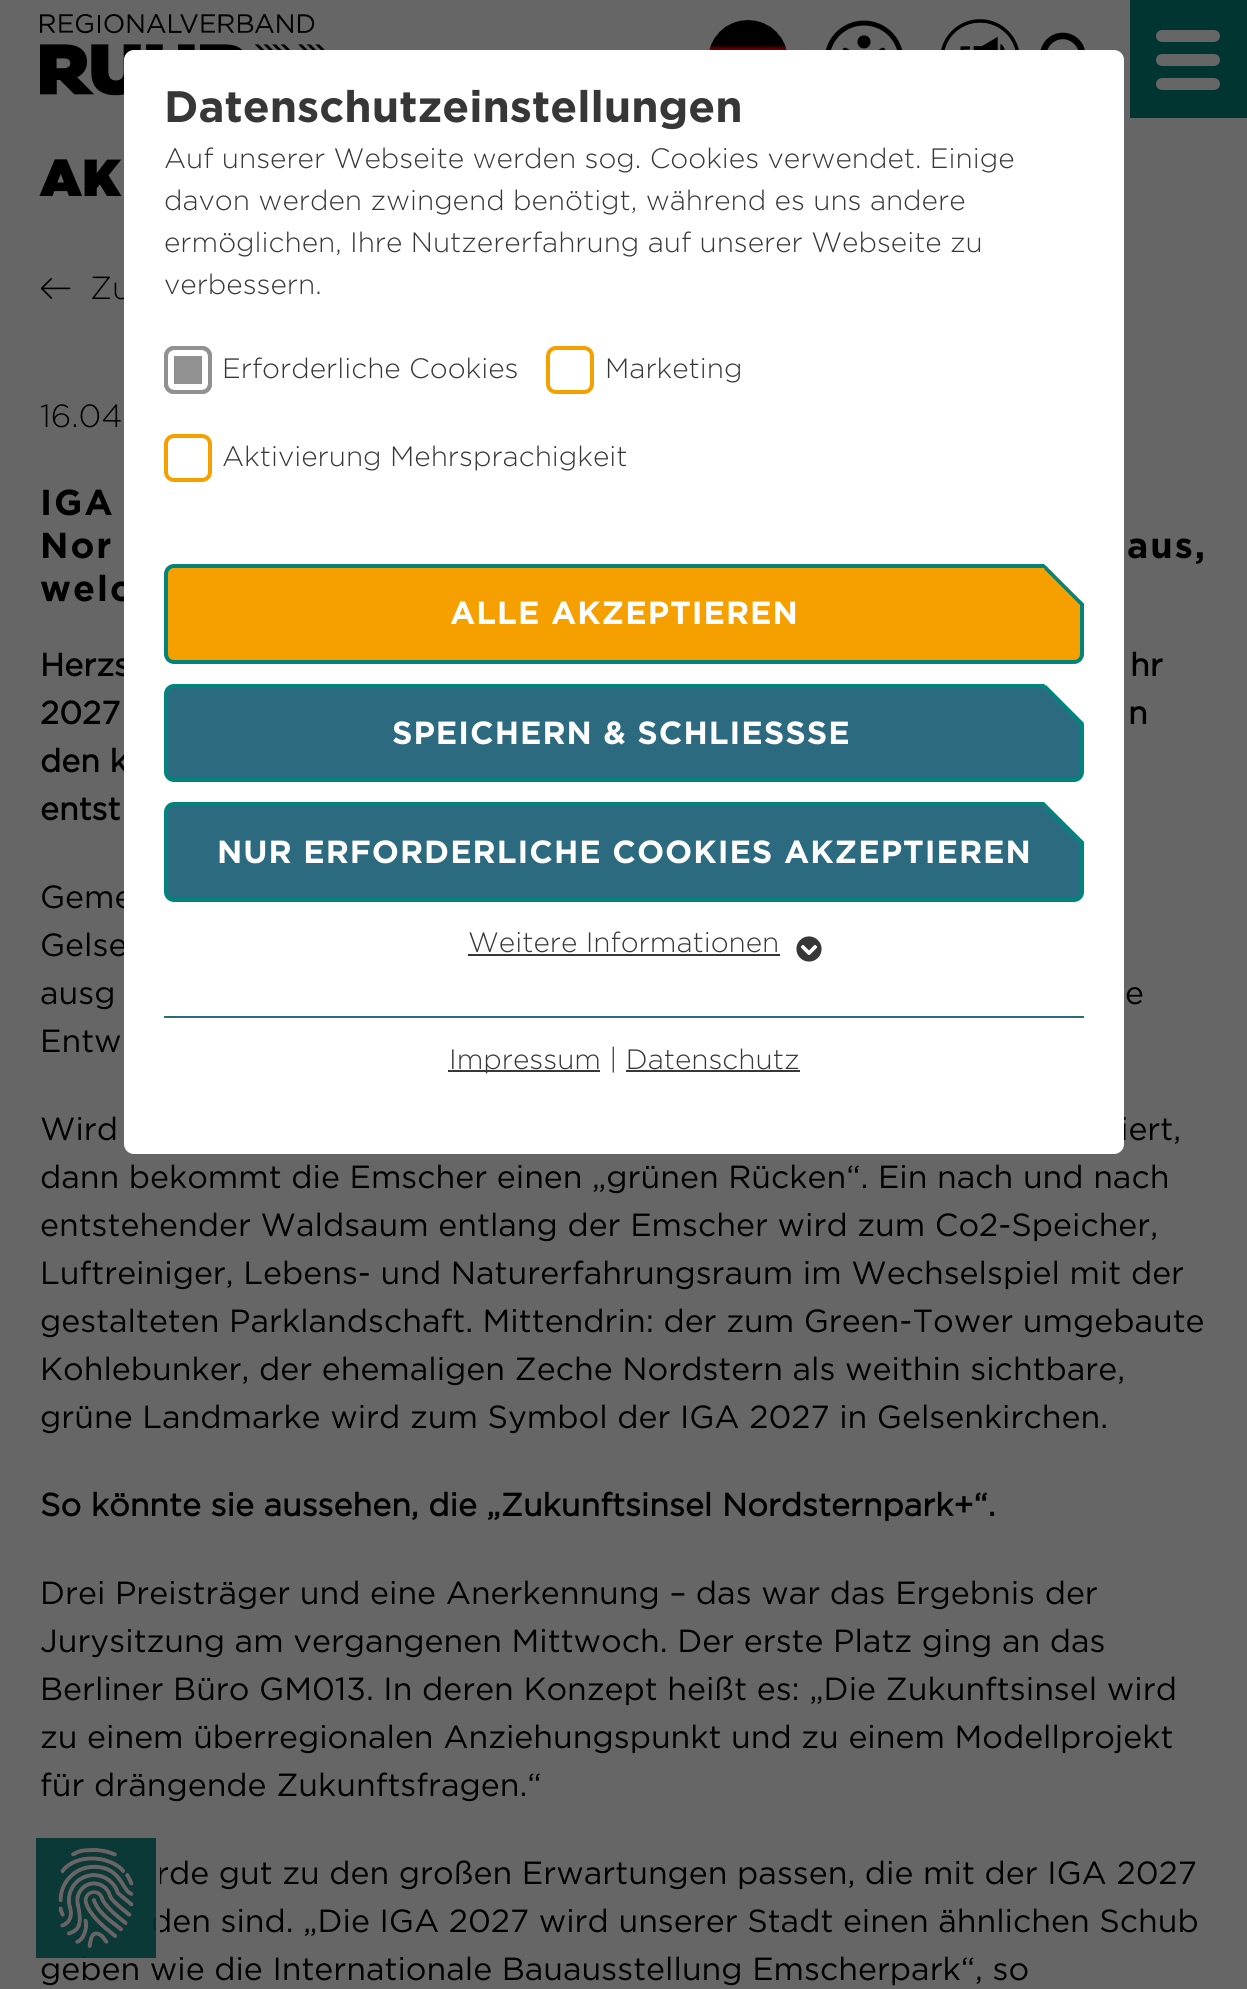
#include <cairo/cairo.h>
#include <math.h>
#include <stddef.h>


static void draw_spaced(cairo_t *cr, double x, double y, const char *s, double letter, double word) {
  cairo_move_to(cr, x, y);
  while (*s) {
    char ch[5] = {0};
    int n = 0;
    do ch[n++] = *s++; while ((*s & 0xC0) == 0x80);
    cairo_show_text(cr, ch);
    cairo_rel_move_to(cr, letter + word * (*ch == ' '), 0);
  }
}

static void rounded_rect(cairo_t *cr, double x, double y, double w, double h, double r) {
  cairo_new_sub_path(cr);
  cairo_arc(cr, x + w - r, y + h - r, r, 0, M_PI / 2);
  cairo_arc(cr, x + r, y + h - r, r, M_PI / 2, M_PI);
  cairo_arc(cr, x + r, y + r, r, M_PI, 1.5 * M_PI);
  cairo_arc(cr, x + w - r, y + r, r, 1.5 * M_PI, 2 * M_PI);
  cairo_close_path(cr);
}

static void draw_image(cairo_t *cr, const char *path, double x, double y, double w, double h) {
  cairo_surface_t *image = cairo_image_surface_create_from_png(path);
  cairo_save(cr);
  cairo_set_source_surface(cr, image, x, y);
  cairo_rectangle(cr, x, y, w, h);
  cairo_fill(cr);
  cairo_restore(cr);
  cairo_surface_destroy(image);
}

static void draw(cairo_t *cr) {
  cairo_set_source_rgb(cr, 102 / 255.0, 102 / 255.0, 102 / 255.0);
  cairo_paint(cr);
  draw_image(cr, "images/1.png", 40, 14, 285, 82);
  draw_image(cr, "images/2.png", 709, 20, 78, 30);
  draw_image(cr, "images/3.png", 825, 20, 77, 30);
  draw_image(cr, "images/4.png", 941, 19, 78, 31);
  draw_image(cr, "images/5.png", 1040, 32, 45, 18);
  cairo_set_source_rgb(cr, 0, 53 / 255.0, 50 / 255.0);
  cairo_rectangle(cr, 1130, 0, 117, 118);
  cairo_fill(cr);
  cairo_set_source_rgb(cr, 102 / 255.0, 102 / 255.0, 102 / 255.0);
  rounded_rect(cr, 1156, 30, 64, 12, 6);
  cairo_fill(cr);
  rounded_rect(cr, 1156, 54, 64, 12, 6);
  cairo_fill(cr);
  rounded_rect(cr, 1156, 78, 64, 12, 6);
  cairo_fill(cr);
  draw_image(cr, "images/7.png", 40, 278, 31, 21);
  cairo_select_font_face(cr, "Gotham", CAIRO_FONT_SLANT_NORMAL, CAIRO_FONT_WEIGHT_NORMAL);
  cairo_set_font_size(cr, 52);
  cairo_set_source_rgb(cr, 0, 0, 0);
  draw_spaced(cr, 40, 196, "AK", 1, 0);
  cairo_select_font_face(cr, "Gotham Light", CAIRO_FONT_SLANT_NORMAL, CAIRO_FONT_WEIGHT_NORMAL);
  cairo_set_font_size(cr, 32);
  cairo_move_to(cr, 90, 299);
  cairo_show_text(cr, "Zu");
  cairo_move_to(cr, 40, 427);
  cairo_show_text(cr, "16.04");
  cairo_select_font_face(cr, "Gotham", CAIRO_FONT_SLANT_NORMAL, CAIRO_FONT_WEIGHT_BOLD);
  cairo_set_font_size(cr, 36);
  draw_spaced(cr, 40, 515, "IGA", 2, 0);
  draw_spaced(cr, 40, 558, "Nor", 2, 0);
  draw_spaced(cr, 1127, 558, "aus,", 2, 0);
  draw_spaced(cr, 40, 601, "welc", 2, 0);
  cairo_select_font_face(cr, "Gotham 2", CAIRO_FONT_SLANT_NORMAL, CAIRO_FONT_WEIGHT_BOLD);
  cairo_set_font_size(cr, 32);
  cairo_move_to(cr, 40, 676);
  cairo_show_text(cr, "Herzs");
  cairo_move_to(cr, 1130, 676);
  cairo_show_text(cr, "hr");
  cairo_move_to(cr, 40, 724);
  cairo_show_text(cr, "2027");
  cairo_move_to(cr, 1128, 724);
  cairo_show_text(cr, "n");
  cairo_move_to(cr, 40, 772);
  cairo_show_text(cr, "den k");
  cairo_move_to(cr, 40, 820);
  cairo_show_text(cr, "entst");
  cairo_select_font_face(cr, "Gotham 2", CAIRO_FONT_SLANT_NORMAL, CAIRO_FONT_WEIGHT_NORMAL);
  cairo_move_to(cr, 40, 908);
  cairo_show_text(cr, "Geme");
  cairo_move_to(cr, 40, 956);
  cairo_show_text(cr, "Gelse");
  cairo_move_to(cr, 40, 1004);
  cairo_show_text(cr, "ausg");
  cairo_move_to(cr, 1125, 1004);
  cairo_show_text(cr, "e");
  cairo_move_to(cr, 40, 1052);
  cairo_show_text(cr, "Entw");
  cairo_move_to(cr, 40, 1140);
  cairo_show_text(cr, "Wird");
  cairo_move_to(cr, 1120, 1140);
  cairo_show_text(cr, "iert,");
  cairo_set_source_rgb(cr, 1, 1, 1);
  rounded_rect(cr, 124, 50, 1000, 1104, 10);
  cairo_fill(cr);
  cairo_set_source_rgb(cr, 44 / 255.0, 106 / 255.0, 127 / 255.0);
  rounded_rect(cr, 166, 804, 916, 96, 8);
  cairo_fill_preserve(cr);
  cairo_set_source_rgb(cr, 0, 132 / 255.0, 125 / 255.0);
  cairo_set_line_width(cr, 4);
  cairo_stroke(cr);
  cairo_set_source_rgb(cr, 1, 1, 1);
  cairo_new_path(cr);
  cairo_move_to(cr, 1084, 802);
  cairo_line_to(cr, 1084, 842);
  cairo_line_to(cr, 1044, 802);
  cairo_close_path(cr);
  cairo_fill(cr);
  cairo_set_source_rgb(cr, 0, 132 / 255.0, 125 / 255.0);
  cairo_new_path(cr);
  cairo_move_to(cr, 1046, 805);
  cairo_line_to(cr, 1084, 842);
  cairo_line_to(cr, 1081, 845);
  cairo_line_to(cr, 1044, 808);
  cairo_close_path(cr);
  cairo_fill(cr);
  cairo_set_source_rgb(cr, 44 / 255.0, 106 / 255.0, 127 / 255.0);
  rounded_rect(cr, 166, 686, 916, 94, 8);
  cairo_fill_preserve(cr);
  cairo_set_source_rgb(cr, 0, 132 / 255.0, 125 / 255.0);
  cairo_stroke(cr);
  cairo_set_source_rgb(cr, 1, 1, 1);
  cairo_new_path(cr);
  cairo_move_to(cr, 1084, 684);
  cairo_line_to(cr, 1084, 724);
  cairo_line_to(cr, 1044, 684);
  cairo_close_path(cr);
  cairo_fill(cr);
  cairo_set_source_rgb(cr, 0, 132 / 255.0, 125 / 255.0);
  cairo_new_path(cr);
  cairo_move_to(cr, 1046, 685);
  cairo_line_to(cr, 1084, 723);
  cairo_line_to(cr, 1081, 726);
  cairo_line_to(cr, 1044, 688);
  cairo_close_path(cr);
  cairo_fill(cr);
  cairo_set_source_rgb(cr, 246 / 255.0, 160 / 255.0, 0);
  rounded_rect(cr, 166, 566, 916, 96, 8);
  cairo_fill_preserve(cr);
  cairo_set_source_rgb(cr, 0, 132 / 255.0, 125 / 255.0);
  cairo_stroke(cr);
  cairo_set_source_rgb(cr, 1, 1, 1);
  cairo_new_path(cr);
  cairo_move_to(cr, 1084, 564);
  cairo_line_to(cr, 1084, 604);
  cairo_line_to(cr, 1044, 564);
  cairo_close_path(cr);
  cairo_fill(cr);
  cairo_set_source_rgb(cr, 0, 132 / 255.0, 125 / 255.0);
  cairo_new_path(cr);
  cairo_move_to(cr, 1046, 566);
  cairo_line_to(cr, 1084, 604);
  cairo_line_to(cr, 1081, 606);
  cairo_line_to(cr, 1044, 569);
  cairo_close_path(cr);
  cairo_fill(cr);
  draw_image(cr, "images/6.png", 796, 936, 26, 26);
  cairo_select_font_face(cr, "Gotham", CAIRO_FONT_SLANT_NORMAL, CAIRO_FONT_WEIGHT_BOLD);
  cairo_set_source_rgb(cr, 1, 1, 1);
  draw_spaced(cr, 217, 863, "NUR ERFORDERLICHE COOKIES AKZEPTIEREN", 1, 0);
  draw_spaced(cr, 392, 744, "SPEICHERN & SCHLIESSSE", 1, 0);
  draw_spaced(cr, 450, 624, "ALLE AKZEPTIEREN", 1, 0);
  rounded_rect(cr, 166, 436, 44, 44, 8);
  cairo_set_source_rgb(cr, 246 / 255.0, 160 / 255.0, 0);
  cairo_stroke(cr);
  rounded_rect(cr, 548, 348, 44, 44, 8);
  cairo_stroke(cr);
  cairo_set_source_rgb(cr, 145 / 255.0, 145 / 255.0, 145 / 255.0);
  rounded_rect(cr, 164, 346, 48, 48, 10);
  cairo_fill(cr);
  rounded_rect(cr, 171, 353, 34, 34, 3);
  cairo_set_source_rgb(cr, 1, 1, 1);
  cairo_set_line_width(cr, 6);
  cairo_stroke(cr);
  rounded_rect(cr, 166, 348, 44, 44, 8);
  cairo_set_source_rgb(cr, 145 / 255.0, 145 / 255.0, 145 / 255.0);
  cairo_set_line_width(cr, 4);
  cairo_stroke(cr);
  cairo_set_source_rgb(cr, 55 / 255.0, 55 / 255.0, 55 / 255.0);
  cairo_rectangle(cr, 626, 1070, 174, 2);
  cairo_fill(cr);
  cairo_rectangle(cr, 448, 1070, 152, 2);
  cairo_fill(cr);
  cairo_select_font_face(cr, "Gotham Light", CAIRO_FONT_SLANT_NORMAL, CAIRO_FONT_WEIGHT_NORMAL);
  cairo_set_font_size(cr, 28);
  cairo_move_to(cr, 449, 1069);
  cairo_show_text(cr, "Impressum | Datenschutz");
  cairo_move_to(cr, 468, 952);
  cairo_show_text(cr, "Weitere Informationen");
  cairo_rectangle(cr, 468, 954, 312, 2);
  cairo_fill(cr);
  cairo_move_to(cr, 222, 466);
  cairo_show_text(cr, "Aktivierung Mehrsprachigkeit");
  cairo_move_to(cr, 605, 378);
  cairo_show_text(cr, "Marketing");
  cairo_move_to(cr, 222, 378);
  cairo_show_text(cr, "Erforderliche Cookies");
  cairo_move_to(cr, 164, 294);
  cairo_show_text(cr, "verbessern.");
  cairo_move_to(cr, 164, 252);
  cairo_show_text(cr, "ermöglichen, Ihre Nutzererfahrung auf unserer Webseite zu");
  cairo_move_to(cr, 164, 210);
  cairo_show_text(cr, "davon werden zwingend benötigt, während es uns andere");
  cairo_move_to(cr, 164, 168);
  cairo_show_text(cr, "Auf unserer Webseite werden sog. Cookies verwendet. Einige");
  cairo_select_font_face(cr, "Gotham", CAIRO_FONT_SLANT_NORMAL, CAIRO_FONT_WEIGHT_BOLD);
  cairo_set_font_size(cr, 44);
  cairo_move_to(cr, 164, 122);
  cairo_show_text(cr, "Datenschutzeinstellungen");
  cairo_set_source_rgb(cr, 44 / 255.0, 106 / 255.0, 127 / 255.0);
  cairo_rectangle(cr, 164, 1016, 920, 2);
  cairo_fill(cr);
  cairo_select_font_face(cr, "Gotham 2", CAIRO_FONT_SLANT_NORMAL, CAIRO_FONT_WEIGHT_NORMAL);
  cairo_set_font_size(cr, 32);
  cairo_set_source_rgb(cr, 0, 0, 0);
  cairo_move_to(cr, 40, 1188);
  cairo_show_text(cr, "dann bekommt die Emscher einen „grünen Rücken“. Ein nach und nach");
  cairo_move_to(cr, 40, 1236);
  cairo_show_text(cr, "entstehender Waldsaum entlang der Emscher wird zum Co2-Speicher,");
  cairo_move_to(cr, 40, 1284);
  cairo_show_text(cr, "Luftreiniger, Lebens- und Naturerfahrungsraum im Wechselspiel mit der");
  cairo_move_to(cr, 40, 1332);
  cairo_show_text(cr, "gestalteten Parklandschaft. Mittendrin: der zum Green-Tower umgebaute");
  cairo_move_to(cr, 40, 1380);
  cairo_show_text(cr, "Kohlebunker, der ehemaligen Zeche Nordstern als weithin sichtbare,");
  cairo_move_to(cr, 40, 1428);
  cairo_show_text(cr, "grüne Landmarke wird zum Symbol der IGA 2027 in Gelsenkirchen.");
  cairo_select_font_face(cr, "Gotham 2", CAIRO_FONT_SLANT_NORMAL, CAIRO_FONT_WEIGHT_BOLD);
  cairo_move_to(cr, 40, 1516);
  cairo_show_text(cr, "So könnte sie aussehen, die „Zukunftsinsel Nordsternpark+“.");
  cairo_select_font_face(cr, "Gotham 2", CAIRO_FONT_SLANT_NORMAL, CAIRO_FONT_WEIGHT_NORMAL);
  cairo_move_to(cr, 40, 1604);
  cairo_show_text(cr, "Drei Preisträger und eine Anerkennung – das war das Ergebnis der");
  cairo_move_to(cr, 40, 1652);
  cairo_show_text(cr, "Jurysitzung am vergangenen Mittwoch. Der erste Platz ging an das");
  cairo_move_to(cr, 40, 1700);
  cairo_show_text(cr, "Berliner Büro GM013. In deren Konzept heißt es: „Die Zukunftsinsel wird");
  cairo_move_to(cr, 40, 1748);
  cairo_show_text(cr, "zu einem überregionalen Anziehungspunkt und zu einem Modellprojekt");
  cairo_move_to(cr, 40, 1796);
  cairo_show_text(cr, "für drängende Zukunftsfragen.“");
  cairo_move_to(cr, 156, 1884);
  cairo_show_text(cr, "rde gut zu den großen Erwartungen passen, die mit der IGA 2027");
  cairo_move_to(cr, 151, 1932);
  cairo_show_text(cr, "den sind. „Die IGA 2027 wird unserer Stadt einen ähnlichen Schub");
  cairo_move_to(cr, 40, 1980);
  cairo_show_text(cr, "geben wie die Internationale Bauausstellung Emscherpark“, so");
  cairo_set_source_rgba(cr, 0, 53 / 255.0, 50 / 255.0, 0.9);
  cairo_rectangle(cr, 34, 1836, 124, 124);
  cairo_fill_preserve(cr);
  cairo_set_source_rgb(cr, 102 / 255.0, 102 / 255.0, 102 / 255.0);
  cairo_stroke(cr);
  draw_image(cr, "images/8.png", 58, 1848, 76, 100);
}

int main(void) {
  cairo_surface_t *surface = cairo_image_surface_create(CAIRO_FORMAT_RGB24, 1247, 1989);
  cairo_t *cr = cairo_create(surface);
  cairo_font_options_t *options = cairo_font_options_create();
  cairo_font_options_set_hint_metrics(options, CAIRO_HINT_METRICS_OFF);
  cairo_font_options_set_hint_style(options, CAIRO_HINT_STYLE_NONE);
  cairo_set_font_options(cr, options);
  cairo_set_miter_limit(cr, 4);
  draw(cr);
  cairo_surface_write_to_png(surface, "out.png");
  cairo_font_options_destroy(options);
  cairo_destroy(cr);
  cairo_surface_destroy(surface);
  return 0;
}
